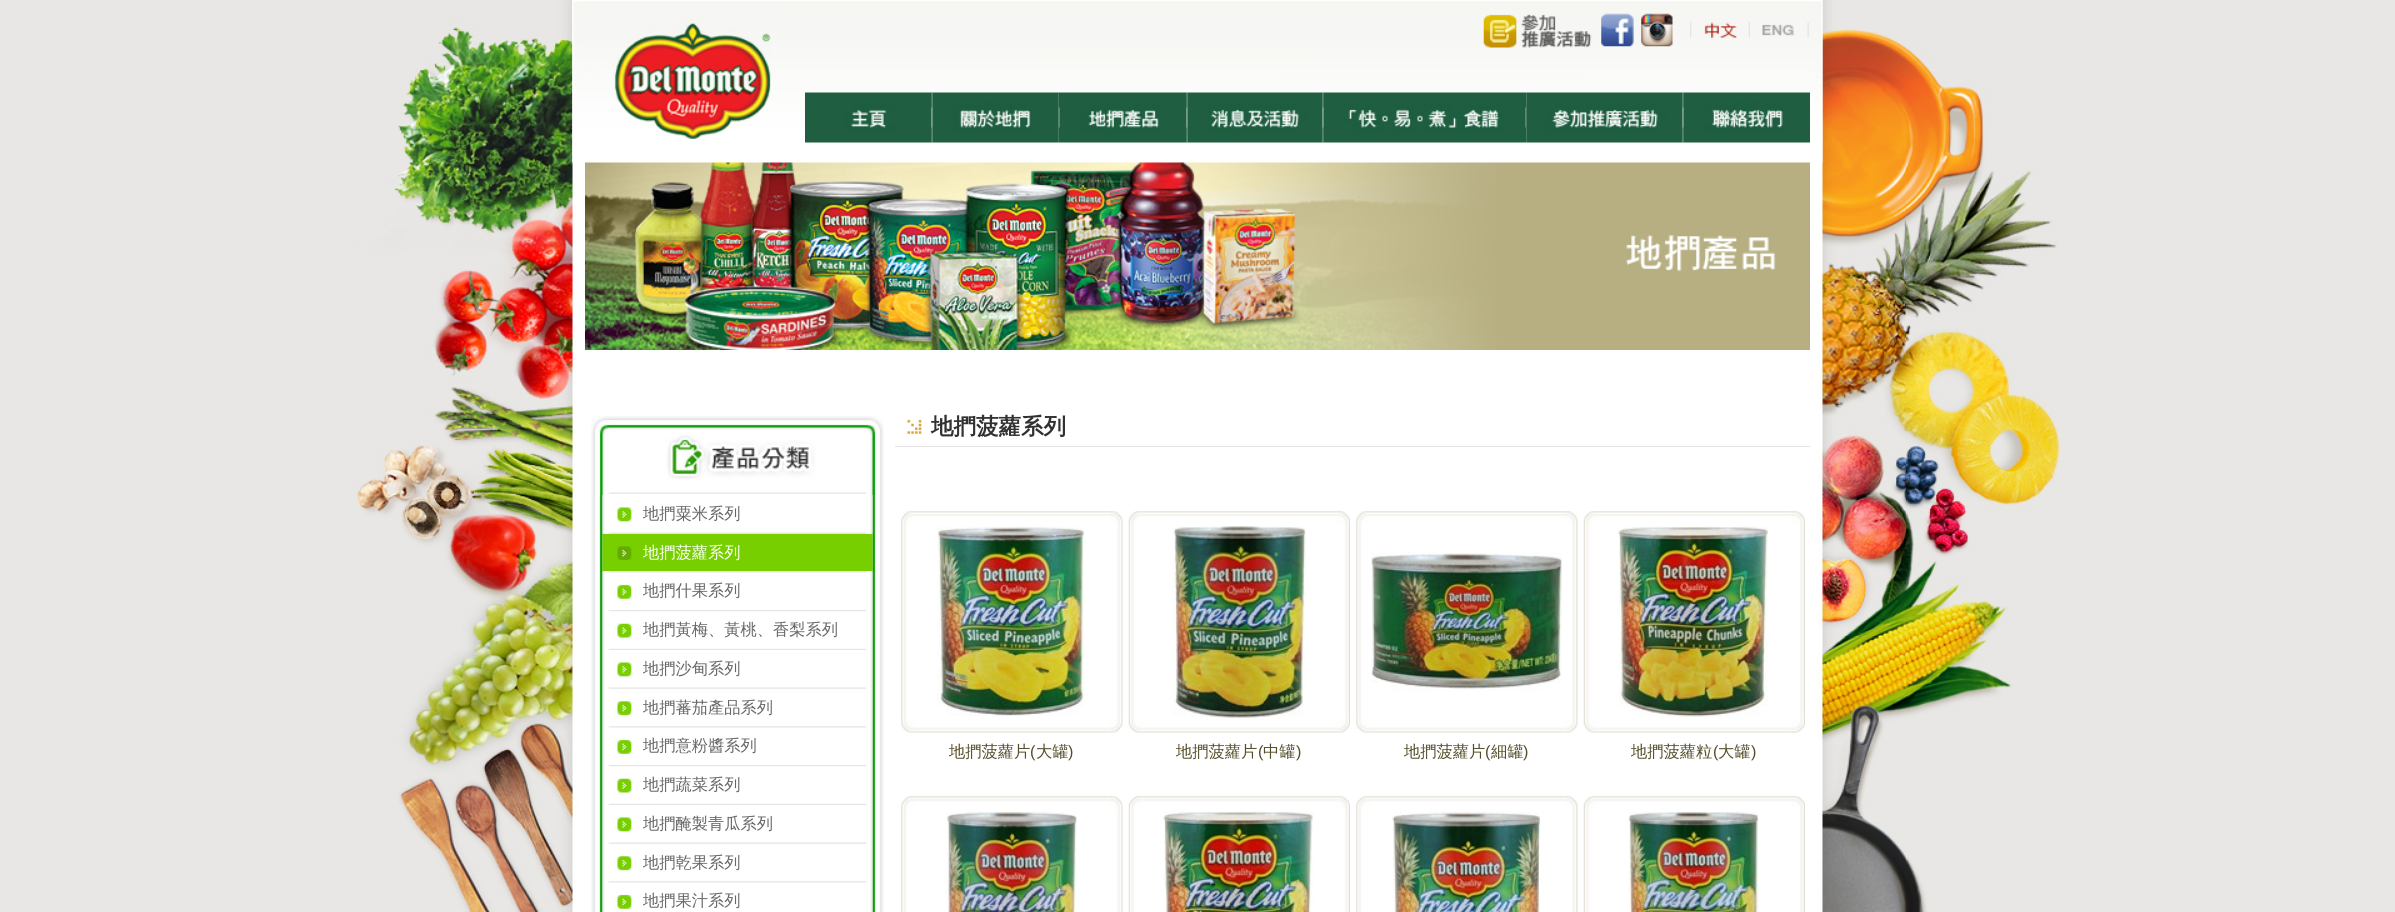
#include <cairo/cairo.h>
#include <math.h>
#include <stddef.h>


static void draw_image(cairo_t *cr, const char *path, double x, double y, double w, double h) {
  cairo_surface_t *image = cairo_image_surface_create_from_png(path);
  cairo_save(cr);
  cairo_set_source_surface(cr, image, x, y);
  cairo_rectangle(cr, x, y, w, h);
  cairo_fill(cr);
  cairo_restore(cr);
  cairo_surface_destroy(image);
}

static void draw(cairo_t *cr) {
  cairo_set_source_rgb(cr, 232 / 255.0, 231 / 255.0, 229 / 255.0);
  cairo_paint(cr);
  draw_image(cr, "images/1.png", 357, 0, 1704, 912);
  draw_image(cr, "images/2.png", 572, 0, 1251, 163);
  draw_image(cr, "images/3.png", 572, 0, 199, 163);
  draw_image(cr, "images/4.png", 1483, 14, 109, 34);
  draw_image(cr, "images/5.png", 1601, 13, 33, 34);
  draw_image(cr, "images/6.png", 1641, 13, 32, 34);
  draw_image(cr, "images/7.png", 1690, 22, 2, 16);
  draw_image(cr, "images/8.png", 1704, 22, 33, 17);
  draw_image(cr, "images/9.png", 1748, 22, 2, 16);
  draw_image(cr, "images/10.png", 1762, 24, 32, 12);
  draw_image(cr, "images/11.png", 1807, 22, 2, 16);
  draw_image(cr, "images/12.png", 805, 92, 127, 51);
  draw_image(cr, "images/13.png", 931, 92, 2, 51);
  draw_image(cr, "images/14.png", 932, 92, 127, 51);
  draw_image(cr, "images/15.png", 1058, 92, 2, 51);
  draw_image(cr, "images/16.png", 1060, 92, 127, 51);
  draw_image(cr, "images/17.png", 1186, 92, 2, 51);
  draw_image(cr, "images/18.png", 1187, 92, 136, 51);
  draw_image(cr, "images/19.png", 1322, 92, 2, 51);
  draw_image(cr, "images/20.png", 1323, 92, 202, 51);
  draw_image(cr, "images/21.png", 1525, 92, 2, 51);
  draw_image(cr, "images/22.png", 1526, 92, 157, 51);
  draw_image(cr, "images/23.png", 1682, 92, 2, 51);
  draw_image(cr, "images/24.png", 1683, 92, 127, 51);
  draw_image(cr, "images/25.png", 585, 162, 1225, 188);
  draw_image(cr, "images/26.png", 591, 416, 293, 79);
  draw_image(cr, "images/27.png", 591, 495, 293, 417);
  draw_image(cr, "images/28.png", 602, 495, 271, 38);
  draw_image(cr, "images/30.png", 602, 533, 271, 39);
  draw_image(cr, "images/29.png", 602, 532, 271, 2);
  draw_image(cr, "images/32.png", 602, 572, 271, 38);
  draw_image(cr, "images/31.png", 602, 571, 271, 2);
  draw_image(cr, "images/34.png", 602, 611, 271, 38);
  draw_image(cr, "images/33.png", 602, 610, 271, 2);
  draw_image(cr, "images/35.png", 602, 648, 271, 2);
  draw_image(cr, "images/28.png", 602, 650, 271, 38);
  draw_image(cr, "images/37.png", 602, 688, 271, 39);
  draw_image(cr, "images/36.png", 602, 687, 271, 2);
  draw_image(cr, "images/39.png", 602, 727, 271, 38);
  draw_image(cr, "images/38.png", 602, 726, 271, 2);
  draw_image(cr, "images/34.png", 602, 766, 271, 38);
  draw_image(cr, "images/33.png", 602, 765, 271, 2);
  draw_image(cr, "images/35.png", 602, 803, 271, 2);
  draw_image(cr, "images/28.png", 602, 805, 271, 38);
  draw_image(cr, "images/37.png", 602, 843, 271, 39);
  draw_image(cr, "images/36.png", 602, 842, 271, 2);
  draw_image(cr, "images/40.png", 602, 882, 271, 30);
  draw_image(cr, "images/38.png", 602, 881, 271, 2);
  draw_image(cr, "images/41.png", 907, 419, 15, 15);
  cairo_set_source_rgb(cr, 228 / 255.0, 228 / 255.0, 228 / 255.0);
  cairo_rectangle(cr, 895, 446, 915, 1);
  cairo_fill(cr);
  draw_image(cr, "images/42.png", 901, 511, 14, 14);
  draw_image(cr, "images/43.png", 915, 511, 194, 6);
  draw_image(cr, "images/44.png", 1109, 511, 14, 14);
  draw_image(cr, "images/45.png", 901, 525, 6, 194);
  draw_image(cr, "images/46.png", 937, 526, 148, 190);
  draw_image(cr, "images/47.png", 1117, 525, 6, 194);
  draw_image(cr, "images/48.png", 901, 719, 14, 14);
  draw_image(cr, "images/49.png", 915, 727, 194, 6);
  draw_image(cr, "images/50.png", 1109, 719, 14, 14);
  draw_image(cr, "images/52.png", 1142, 511, 195, 6);
  draw_image(cr, "images/51.png", 1128, 511, 15, 14);
  draw_image(cr, "images/53.png", 1336, 511, 14, 14);
  draw_image(cr, "images/54.png", 1128, 525, 6, 194);
  draw_image(cr, "images/55.png", 1172, 526, 134, 192);
  draw_image(cr, "images/56.png", 1345, 525, 5, 194);
  draw_image(cr, "images/58.png", 1142, 727, 195, 6);
  draw_image(cr, "images/57.png", 1128, 719, 15, 14);
  draw_image(cr, "images/59.png", 1336, 719, 14, 14);
  draw_image(cr, "images/42.png", 1356, 511, 14, 14);
  draw_image(cr, "images/43.png", 1370, 511, 194, 6);
  draw_image(cr, "images/60.png", 1564, 511, 14, 14);
  draw_image(cr, "images/45.png", 1356, 525, 6, 194);
  draw_image(cr, "images/61.png", 1371, 552, 191, 139);
  draw_image(cr, "images/47.png", 1572, 525, 6, 194);
  draw_image(cr, "images/48.png", 1356, 719, 14, 14);
  draw_image(cr, "images/49.png", 1370, 727, 194, 6);
  draw_image(cr, "images/62.png", 1564, 719, 14, 14);
  draw_image(cr, "images/52.png", 1597, 511, 195, 6);
  draw_image(cr, "images/63.png", 1583, 511, 15, 14);
  draw_image(cr, "images/53.png", 1791, 511, 14, 14);
  draw_image(cr, "images/64.png", 1583, 525, 6, 194);
  draw_image(cr, "images/65.png", 1618, 526, 151, 191);
  draw_image(cr, "images/66.png", 1800, 525, 5, 194);
  draw_image(cr, "images/58.png", 1597, 727, 195, 6);
  draw_image(cr, "images/67.png", 1583, 719, 15, 14);
  draw_image(cr, "images/59.png", 1791, 719, 14, 14);
  draw_image(cr, "images/42.png", 901, 796, 14, 14);
  draw_image(cr, "images/43.png", 915, 796, 194, 6);
  draw_image(cr, "images/44.png", 1109, 796, 14, 14);
  draw_image(cr, "images/68.png", 901, 810, 6, 102);
  draw_image(cr, "images/69.png", 946, 811, 131, 101);
  draw_image(cr, "images/70.png", 1117, 810, 6, 102);
  draw_image(cr, "images/52.png", 1142, 796, 195, 6);
  draw_image(cr, "images/51.png", 1128, 796, 15, 14);
  draw_image(cr, "images/53.png", 1336, 796, 14, 14);
  draw_image(cr, "images/71.png", 1128, 810, 6, 102);
  draw_image(cr, "images/72.png", 1163, 811, 151, 101);
  draw_image(cr, "images/73.png", 1345, 810, 5, 102);
  draw_image(cr, "images/42.png", 1356, 796, 14, 14);
  draw_image(cr, "images/43.png", 1370, 796, 194, 6);
  draw_image(cr, "images/60.png", 1564, 796, 14, 14);
  draw_image(cr, "images/68.png", 1356, 810, 6, 102);
  draw_image(cr, "images/74.png", 1392, 811, 148, 101);
  draw_image(cr, "images/70.png", 1572, 810, 6, 102);
  draw_image(cr, "images/52.png", 1597, 796, 195, 6);
  draw_image(cr, "images/63.png", 1583, 796, 15, 14);
  draw_image(cr, "images/53.png", 1791, 796, 14, 14);
  draw_image(cr, "images/75.png", 1583, 810, 6, 102);
  draw_image(cr, "images/76.png", 1628, 811, 131, 101);
  draw_image(cr, "images/77.png", 1800, 810, 5, 102);
  cairo_select_font_face(cr, "WenQuanYi Zen Hei Medium", CAIRO_FONT_SLANT_NORMAL, CAIRO_FONT_WEIGHT_NORMAL);
  cairo_set_font_size(cr, 16.25);
  cairo_set_source_rgb(cr, 102 / 255.0, 102 / 255.0, 102 / 255.0);
  cairo_move_to(cr, 643, 519);
  cairo_show_text(cr, "地捫粟米系列");
  cairo_set_source_rgb(cr, 1, 1, 1);
  cairo_move_to(cr, 643, 558);
  cairo_show_text(cr, "地捫菠蘿系列");
  cairo_set_source_rgb(cr, 102 / 255.0, 102 / 255.0, 102 / 255.0);
  cairo_move_to(cr, 643, 596);
  cairo_show_text(cr, "地捫什果系列");
  cairo_move_to(cr, 643, 635);
  cairo_show_text(cr, "地捫黃梅、黃桃、香梨系列");
  cairo_move_to(cr, 643, 674);
  cairo_show_text(cr, "地捫沙甸系列");
  cairo_move_to(cr, 643, 713);
  cairo_show_text(cr, "地捫蕃茄產品系列");
  cairo_move_to(cr, 643, 751);
  cairo_show_text(cr, "地捫意粉醬系列");
  cairo_move_to(cr, 643, 790);
  cairo_show_text(cr, "地捫蔬菜系列");
  cairo_move_to(cr, 643, 829);
  cairo_show_text(cr, "地捫醃製青瓜系列");
  cairo_move_to(cr, 643, 868);
  cairo_show_text(cr, "地捫乾果系列");
  cairo_move_to(cr, 643, 906);
  cairo_show_text(cr, "地捫果汁系列");
  cairo_select_font_face(cr, "WenQuanYi Zen Hei", CAIRO_FONT_SLANT_NORMAL, CAIRO_FONT_WEIGHT_BOLD);
  cairo_set_font_size(cr, 22.5);
  cairo_set_source_rgb(cr, 49 / 255.0, 49 / 255.0, 49 / 255.0);
  cairo_move_to(cr, 931, 434);
  cairo_show_text(cr, "地捫菠蘿系列");
  cairo_select_font_face(cr, "WenQuanYi Zen Hei Medium", CAIRO_FONT_SLANT_NORMAL, CAIRO_FONT_WEIGHT_NORMAL);
  cairo_set_font_size(cr, 16.25);
  cairo_set_source_rgb(cr, 84 / 255.0, 77 / 255.0, 40 / 255.0);
  cairo_move_to(cr, 949, 757);
  cairo_show_text(cr, "地捫菠蘿片");
  cairo_select_font_face(cr, "Liberation Sans", CAIRO_FONT_SLANT_NORMAL, CAIRO_FONT_WEIGHT_NORMAL);
  cairo_move_to(cr, 1030, 757);
  cairo_show_text(cr, "(");
  cairo_select_font_face(cr, "WenQuanYi Zen Hei Medium", CAIRO_FONT_SLANT_NORMAL, CAIRO_FONT_WEIGHT_NORMAL);
  cairo_move_to(cr, 1036, 757);
  cairo_show_text(cr, "大罐");
  cairo_select_font_face(cr, "Liberation Sans", CAIRO_FONT_SLANT_NORMAL, CAIRO_FONT_WEIGHT_NORMAL);
  cairo_move_to(cr, 1068, 757);
  cairo_show_text(cr, ")");
  cairo_select_font_face(cr, "WenQuanYi Zen Hei Medium", CAIRO_FONT_SLANT_NORMAL, CAIRO_FONT_WEIGHT_NORMAL);
  cairo_move_to(cr, 1176, 757);
  cairo_show_text(cr, "地捫菠蘿片");
  cairo_select_font_face(cr, "Liberation Sans", CAIRO_FONT_SLANT_NORMAL, CAIRO_FONT_WEIGHT_NORMAL);
  cairo_move_to(cr, 1258, 757);
  cairo_show_text(cr, "(");
  cairo_select_font_face(cr, "WenQuanYi Zen Hei Medium", CAIRO_FONT_SLANT_NORMAL, CAIRO_FONT_WEIGHT_NORMAL);
  cairo_move_to(cr, 1263, 757);
  cairo_show_text(cr, "中罐");
  cairo_select_font_face(cr, "Liberation Sans", CAIRO_FONT_SLANT_NORMAL, CAIRO_FONT_WEIGHT_NORMAL);
  cairo_move_to(cr, 1296, 757);
  cairo_show_text(cr, ")");
  cairo_select_font_face(cr, "WenQuanYi Zen Hei Medium", CAIRO_FONT_SLANT_NORMAL, CAIRO_FONT_WEIGHT_NORMAL);
  cairo_move_to(cr, 1404, 757);
  cairo_show_text(cr, "地捫菠蘿片");
  cairo_select_font_face(cr, "Liberation Sans", CAIRO_FONT_SLANT_NORMAL, CAIRO_FONT_WEIGHT_NORMAL);
  cairo_move_to(cr, 1485, 757);
  cairo_show_text(cr, "(");
  cairo_select_font_face(cr, "WenQuanYi Zen Hei Medium", CAIRO_FONT_SLANT_NORMAL, CAIRO_FONT_WEIGHT_NORMAL);
  cairo_move_to(cr, 1491, 757);
  cairo_show_text(cr, "細罐");
  cairo_select_font_face(cr, "Liberation Sans", CAIRO_FONT_SLANT_NORMAL, CAIRO_FONT_WEIGHT_NORMAL);
  cairo_move_to(cr, 1523, 757);
  cairo_show_text(cr, ")");
  cairo_select_font_face(cr, "WenQuanYi Zen Hei Medium", CAIRO_FONT_SLANT_NORMAL, CAIRO_FONT_WEIGHT_NORMAL);
  cairo_move_to(cr, 1631, 757);
  cairo_show_text(cr, "地捫菠蘿粒");
  cairo_select_font_face(cr, "Liberation Sans", CAIRO_FONT_SLANT_NORMAL, CAIRO_FONT_WEIGHT_NORMAL);
  cairo_move_to(cr, 1713, 757);
  cairo_show_text(cr, "(");
  cairo_select_font_face(cr, "WenQuanYi Zen Hei Medium", CAIRO_FONT_SLANT_NORMAL, CAIRO_FONT_WEIGHT_NORMAL);
  cairo_move_to(cr, 1718, 757);
  cairo_show_text(cr, "大罐");
  cairo_select_font_face(cr, "Liberation Sans", CAIRO_FONT_SLANT_NORMAL, CAIRO_FONT_WEIGHT_NORMAL);
  cairo_move_to(cr, 1751, 757);
  cairo_show_text(cr, ")");
}

int main(void) {
  cairo_surface_t *surface = cairo_image_surface_create(CAIRO_FORMAT_RGB24, 2395, 912);
  cairo_t *cr = cairo_create(surface);
  cairo_font_options_t *options = cairo_font_options_create();
  cairo_font_options_set_hint_metrics(options, CAIRO_HINT_METRICS_OFF);
  cairo_font_options_set_hint_style(options, CAIRO_HINT_STYLE_NONE);
  cairo_set_font_options(cr, options);
  cairo_set_miter_limit(cr, 4);
  draw(cr);
  cairo_surface_write_to_png(surface, "out.png");
  cairo_font_options_destroy(options);
  cairo_destroy(cr);
  cairo_surface_destroy(surface);
  return 0;
}
